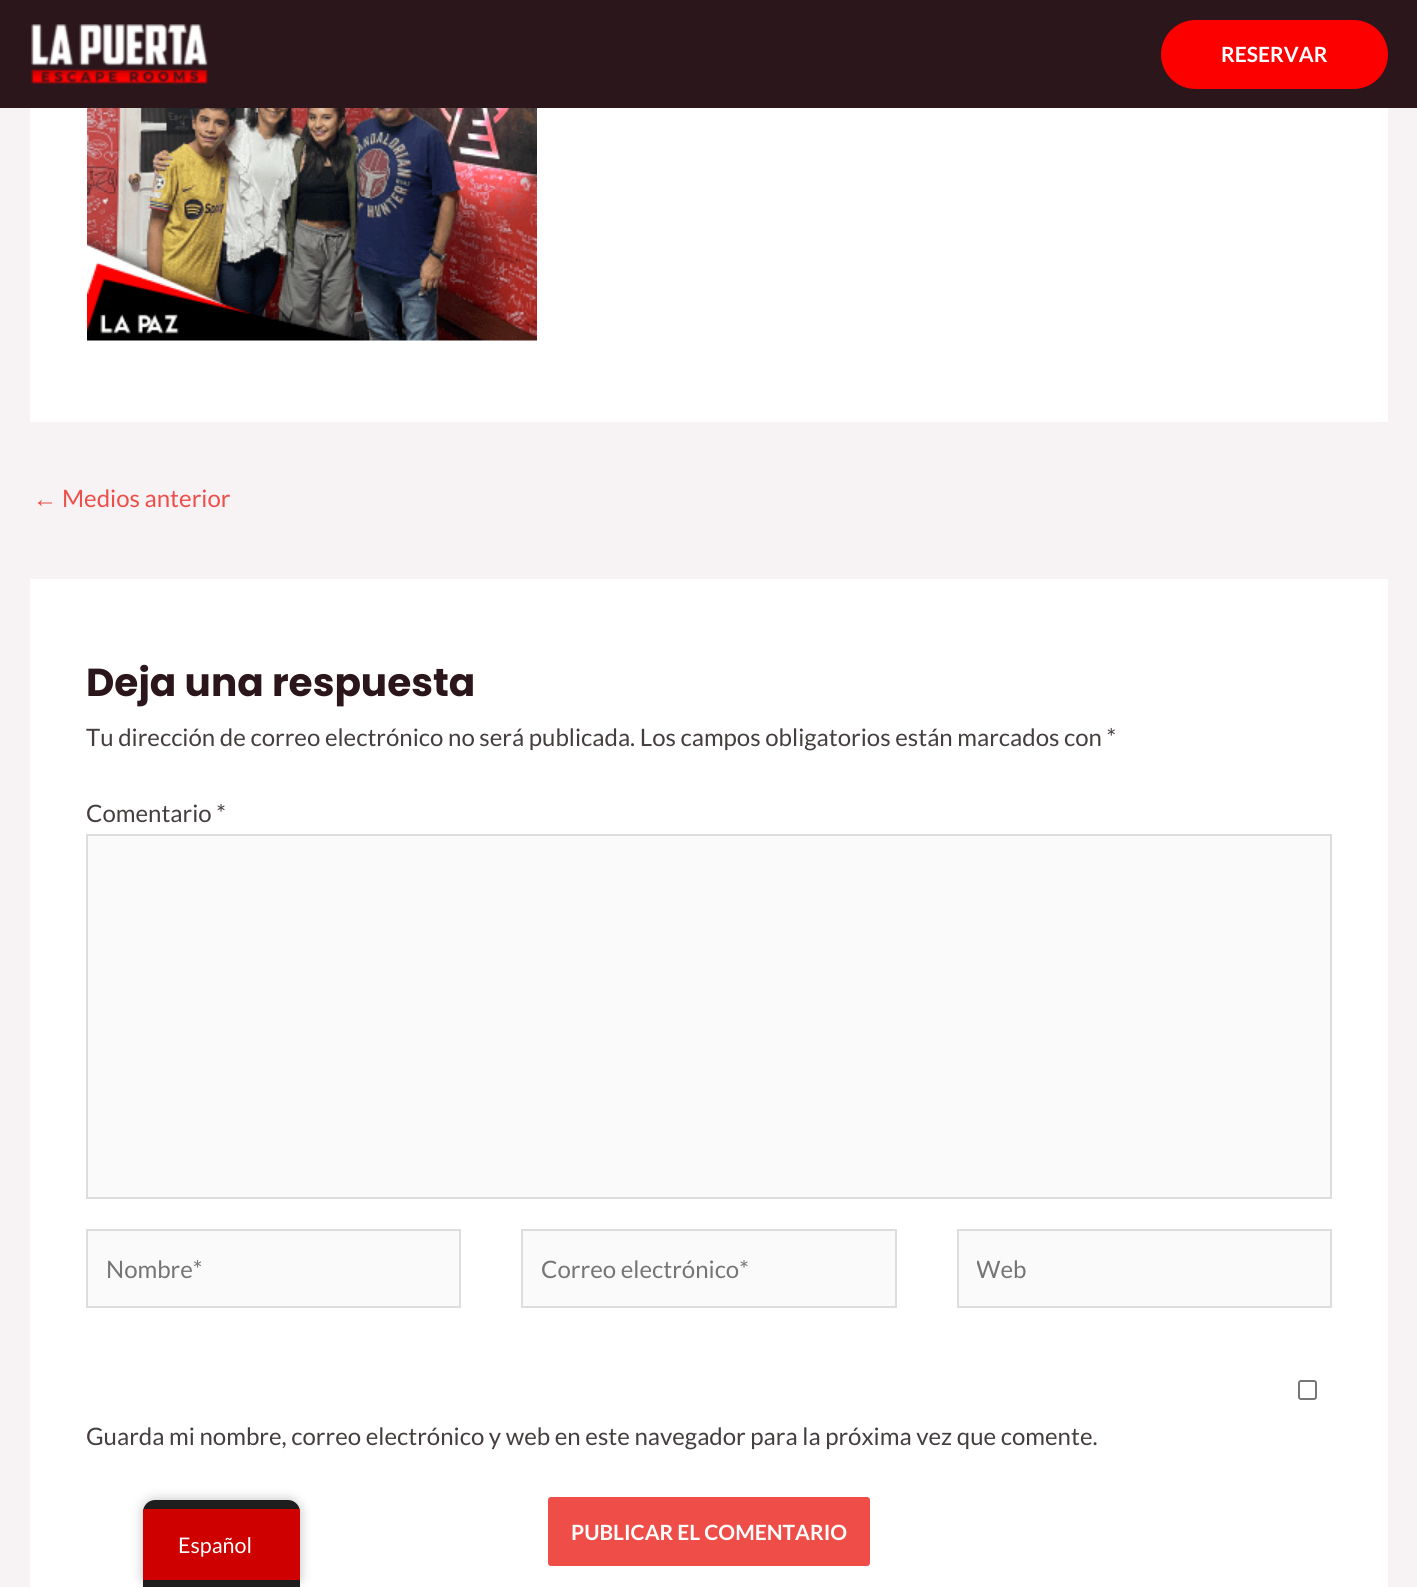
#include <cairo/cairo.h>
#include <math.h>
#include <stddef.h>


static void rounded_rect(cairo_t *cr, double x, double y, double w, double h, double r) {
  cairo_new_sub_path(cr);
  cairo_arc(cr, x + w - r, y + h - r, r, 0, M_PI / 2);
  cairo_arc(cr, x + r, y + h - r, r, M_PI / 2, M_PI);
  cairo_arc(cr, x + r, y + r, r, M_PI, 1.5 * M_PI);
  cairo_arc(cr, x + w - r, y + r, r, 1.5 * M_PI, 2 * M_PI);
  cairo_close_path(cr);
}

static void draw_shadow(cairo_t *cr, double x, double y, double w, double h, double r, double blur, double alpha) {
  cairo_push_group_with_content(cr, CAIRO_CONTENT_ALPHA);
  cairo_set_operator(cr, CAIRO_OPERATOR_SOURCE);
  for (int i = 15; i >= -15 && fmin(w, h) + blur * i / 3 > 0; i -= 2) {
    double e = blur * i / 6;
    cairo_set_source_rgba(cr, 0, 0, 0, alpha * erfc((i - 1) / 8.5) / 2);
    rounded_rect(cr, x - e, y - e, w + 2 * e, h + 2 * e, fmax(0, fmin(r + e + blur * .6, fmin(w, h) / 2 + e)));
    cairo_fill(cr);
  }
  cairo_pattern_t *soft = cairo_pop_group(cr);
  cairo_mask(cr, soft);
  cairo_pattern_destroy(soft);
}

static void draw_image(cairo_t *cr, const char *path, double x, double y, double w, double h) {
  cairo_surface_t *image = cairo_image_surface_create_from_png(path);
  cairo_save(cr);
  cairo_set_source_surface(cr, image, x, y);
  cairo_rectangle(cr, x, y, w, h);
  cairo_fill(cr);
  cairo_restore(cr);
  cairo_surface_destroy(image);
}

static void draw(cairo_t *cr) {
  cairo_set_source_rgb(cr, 247 / 255.0, 243 / 255.0, 245 / 255.0);
  cairo_paint(cr);
  cairo_set_source_rgb(cr, 43 / 255.0, 22 / 255.0, 27 / 255.0);
  cairo_rectangle(cr, 0, 0, 1417, 108);
  cairo_fill(cr);
  draw_image(cr, "images/1.png", 31, 24, 177, 60);
  cairo_set_source_rgb(cr, 252 / 255.0, 0, 0);
  rounded_rect(cr, 1161, 20, 227, 69, 34.5);
  cairo_fill(cr);
  cairo_set_source_rgb(cr, 1, 1, 1);
  cairo_rectangle(cr, 30, 108, 1358, 314);
  cairo_fill(cr);
  draw_image(cr, "images/2.png", 87, 108, 450, 233);
  cairo_rectangle(cr, 30, 579, 1358, 1008);
  cairo_fill(cr);
  cairo_set_source_rgb(cr, 250 / 255.0, 250 / 255.0, 250 / 255.0);
  cairo_rectangle(cr, 87, 835, 1244, 363);
  cairo_fill_preserve(cr);
  cairo_set_source_rgb(cr, 221 / 255.0, 221 / 255.0, 221 / 255.0);
  cairo_stroke(cr);
  cairo_set_source_rgb(cr, 250 / 255.0, 250 / 255.0, 250 / 255.0);
  cairo_rectangle(cr, 87, 1230, 373, 77);
  cairo_fill_preserve(cr);
  cairo_set_source_rgb(cr, 221 / 255.0, 221 / 255.0, 221 / 255.0);
  cairo_stroke(cr);
  cairo_set_source_rgb(cr, 250 / 255.0, 250 / 255.0, 250 / 255.0);
  cairo_rectangle(cr, 522, 1230, 374, 77);
  cairo_fill_preserve(cr);
  cairo_set_source_rgb(cr, 221 / 255.0, 221 / 255.0, 221 / 255.0);
  cairo_stroke(cr);
  cairo_set_source_rgb(cr, 250 / 255.0, 250 / 255.0, 250 / 255.0);
  cairo_rectangle(cr, 958, 1230, 373, 77);
  cairo_fill_preserve(cr);
  cairo_set_source_rgb(cr, 221 / 255.0, 221 / 255.0, 221 / 255.0);
  cairo_stroke(cr);
  rounded_rect(cr, 1299, 1381, 17, 18, 2);
  cairo_set_source_rgb(cr, 118 / 255.0, 118 / 255.0, 118 / 255.0);
  cairo_stroke(cr);
  cairo_set_source_rgb(cr, 239 / 255.0, 77 / 255.0, 72 / 255.0);
  rounded_rect(cr, 548, 1497, 322, 69, 3);
  cairo_fill(cr);
  cairo_set_source_rgb(cr, 0, 0, 0);
  draw_shadow(cr, 143, 1500, 157, 87, 12, 6, 0.25);
  cairo_set_source_rgb(cr, 30 / 255.0, 30 / 255.0, 30 / 255.0);
  cairo_new_path(cr);
  cairo_move_to(cr, 155, 1500);
  cairo_line_to(cr, 288, 1500);
  cairo_curve_to(cr, 294.5, 1500, 300, 1505.5, 300, 1512);
  cairo_line_to(cr, 300, 1587);
  cairo_line_to(cr, 143, 1587);
  cairo_line_to(cr, 143, 1512);
  cairo_curve_to(cr, 143, 1505.5, 148.5, 1500, 155, 1500);
  cairo_close_path(cr);
  cairo_fill(cr);
  cairo_save(cr);
  cairo_new_path(cr);
  cairo_move_to(cr, 155, 1500);
  cairo_line_to(cr, 288, 1500);
  cairo_curve_to(cr, 294.5, 1500, 300, 1505.5, 300, 1512);
  cairo_line_to(cr, 300, 1587);
  cairo_line_to(cr, 143, 1587);
  cairo_line_to(cr, 143, 1512);
  cairo_curve_to(cr, 143, 1505.5, 148.5, 1500, 155, 1500);
  cairo_close_path(cr);
  cairo_clip(cr);
  cairo_set_source_rgb(cr, 207 / 255.0, 0, 0);
  cairo_rectangle(cr, 143, 1509, 157, 71);
  cairo_fill(cr);
  cairo_restore(cr);
  cairo_select_font_face(cr, "Lato", CAIRO_FONT_SLANT_NORMAL, CAIRO_FONT_WEIGHT_BOLD);
  cairo_set_font_size(cr, 21);
  cairo_set_source_rgb(cr, 1, 1, 1);
  cairo_move_to(cr, 1221, 62);
  cairo_show_text(cr, "RESERVAR");
  cairo_select_font_face(cr, "Liberation Sans", CAIRO_FONT_SLANT_NORMAL, CAIRO_FONT_WEIGHT_NORMAL);
  cairo_set_font_size(cr, 24);
  cairo_set_source_rgb(cr, 239 / 255.0, 77 / 255.0, 72 / 255.0);
  cairo_move_to(cr, 33, 507);
  cairo_show_text(cr, "←");
  cairo_select_font_face(cr, "Lato", CAIRO_FONT_SLANT_NORMAL, CAIRO_FONT_WEIGHT_NORMAL);
  cairo_move_to(cr, 62, 507);
  cairo_show_text(cr, "Medios anterior");
  cairo_select_font_face(cr, "Poppins", CAIRO_FONT_SLANT_NORMAL, CAIRO_FONT_WEIGHT_BOLD);
  cairo_set_font_size(cr, 39);
  cairo_set_source_rgb(cr, 43 / 255.0, 22 / 255.0, 27 / 255.0);
  cairo_move_to(cr, 86, 696);
  cairo_show_text(cr, "Deja una respuesta");
  cairo_select_font_face(cr, "Lato", CAIRO_FONT_SLANT_NORMAL, CAIRO_FONT_WEIGHT_NORMAL);
  cairo_set_font_size(cr, 24);
  cairo_set_source_rgb(cr, 69 / 255.0, 62 / 255.0, 62 / 255.0);
  cairo_move_to(cr, 86, 746);
  cairo_show_text(cr, "Tu dirección de correo electrónico no será publicada. Los campos obligatorios están marcados con *");
  cairo_move_to(cr, 86, 822);
  cairo_show_text(cr, "Comentario *");
  cairo_set_source_rgb(cr, 117 / 255.0, 117 / 255.0, 117 / 255.0);
  cairo_move_to(cr, 106, 1278);
  cairo_show_text(cr, "Nombre*");
  cairo_move_to(cr, 541, 1278);
  cairo_show_text(cr, "Correo electrónico*");
  cairo_save(cr);
  cairo_rectangle(cr, 977, 1254, 336, 29);
  cairo_clip(cr);
  cairo_move_to(cr, 976, 1278);
  cairo_show_text(cr, "Web");
  cairo_restore(cr);
  cairo_set_source_rgb(cr, 69 / 255.0, 62 / 255.0, 62 / 255.0);
  cairo_move_to(cr, 86, 1445);
  cairo_show_text(cr, "Guarda mi nombre, correo electrónico y web en este navegador para la próxima vez que comente.");
  cairo_select_font_face(cr, "Lato", CAIRO_FONT_SLANT_NORMAL, CAIRO_FONT_WEIGHT_BOLD);
  cairo_set_font_size(cr, 21);
  cairo_set_source_rgb(cr, 1, 1, 1);
  cairo_move_to(cr, 571, 1540);
  cairo_show_text(cr, "PUBLICAR EL COMENTARIO");
  cairo_select_font_face(cr, "Lato", CAIRO_FONT_SLANT_NORMAL, CAIRO_FONT_WEIGHT_NORMAL);
  cairo_set_font_size(cr, 21.5);
  cairo_move_to(cr, 178, 1553);
  cairo_show_text(cr, "Español");
}

int main(void) {
  cairo_surface_t *surface = cairo_image_surface_create(CAIRO_FORMAT_RGB24, 1417, 1587);
  cairo_t *cr = cairo_create(surface);
  cairo_font_options_t *options = cairo_font_options_create();
  cairo_font_options_set_hint_metrics(options, CAIRO_HINT_METRICS_OFF);
  cairo_font_options_set_hint_style(options, CAIRO_HINT_STYLE_NONE);
  cairo_set_font_options(cr, options);
  cairo_set_miter_limit(cr, 4);
  draw(cr);
  cairo_surface_write_to_png(surface, "out.png");
  cairo_font_options_destroy(options);
  cairo_destroy(cr);
  cairo_surface_destroy(surface);
  return 0;
}
